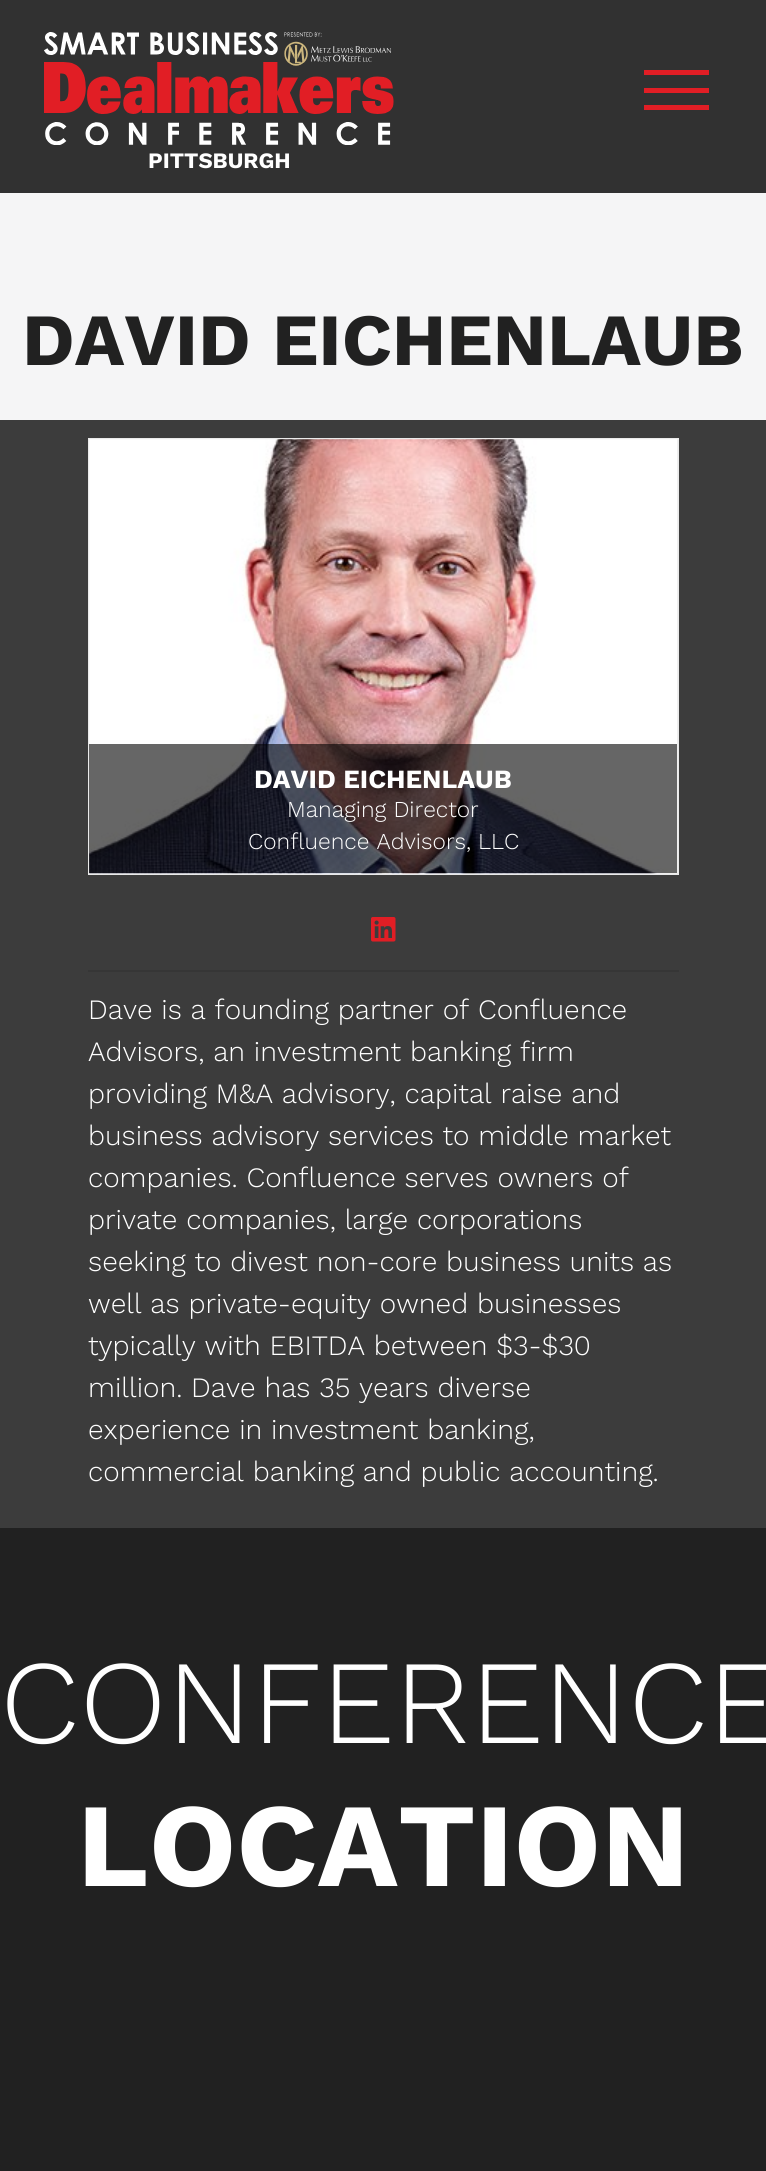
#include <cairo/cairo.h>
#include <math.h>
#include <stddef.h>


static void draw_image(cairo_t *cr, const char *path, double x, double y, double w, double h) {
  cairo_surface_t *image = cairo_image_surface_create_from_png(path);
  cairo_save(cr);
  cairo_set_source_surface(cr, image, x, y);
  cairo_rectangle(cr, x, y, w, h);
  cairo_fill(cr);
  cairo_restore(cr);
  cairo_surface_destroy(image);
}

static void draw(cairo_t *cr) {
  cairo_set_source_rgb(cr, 245 / 255.0, 245 / 255.0, 246 / 255.0);
  cairo_paint(cr);
  cairo_set_source_rgb(cr, 49 / 255.0, 49 / 255.0, 49 / 255.0);
  cairo_rectangle(cr, 0, 0, 766, 193);
  cairo_fill(cr);
  cairo_set_source_rgb(cr, 225 / 255.0, 30 / 255.0, 37 / 255.0);
  cairo_rectangle(cr, 644, 70, 65, 5);
  cairo_fill(cr);
  cairo_rectangle(cr, 644, 88, 65, 5);
  cairo_fill(cr);
  cairo_rectangle(cr, 644, 105, 65, 5);
  cairo_fill(cr);
  draw_image(cr, "images/1.png", 44, 32, 350, 113);
  cairo_set_source_rgb(cr, 60 / 255.0, 60 / 255.0, 60 / 255.0);
  cairo_rectangle(cr, 0, 420, 766, 1108);
  cairo_fill(cr);
  cairo_rectangle(cr, 89, 439, 589, 435);
  cairo_set_source_rgb(cr, 234 / 255.0, 234 / 255.0, 234 / 255.0);
  cairo_stroke(cr);
  draw_image(cr, "images/2.png", 89, 439, 589, 435);
  cairo_set_source_rgba(cr, 0, 0, 0, 0.6);
  cairo_rectangle(cr, 89, 744, 588, 129);
  cairo_fill(cr);
  draw_image(cr, "images/3.png", 371, 917, 25, 25);
  cairo_set_source_rgb(cr, 54 / 255.0, 54 / 255.0, 54 / 255.0);
  cairo_rectangle(cr, 88, 970, 591, 2);
  cairo_fill(cr);
  cairo_set_source_rgb(cr, 33 / 255.0, 33 / 255.0, 33 / 255.0);
  cairo_rectangle(cr, 0, 1528, 766, 643);
  cairo_fill(cr);
  cairo_select_font_face(cr, "Work Sans", CAIRO_FONT_SLANT_NORMAL, CAIRO_FONT_WEIGHT_BOLD);
  cairo_set_font_size(cr, 22);
  cairo_set_source_rgb(cr, 1, 1, 1);
  cairo_move_to(cr, 148, 168);
  cairo_show_text(cr, "PITTSBURGH");
  cairo_set_font_size(cr, 73.5);
  cairo_set_source_rgb(cr, 33 / 255.0, 33 / 255.0, 33 / 255.0);
  cairo_move_to(cr, 22, 365);
  cairo_show_text(cr, "DAVID EICHENLAUB");
  cairo_set_font_size(cr, 26.25);
  cairo_set_source_rgb(cr, 1, 1, 1);
  cairo_move_to(cr, 254, 788);
  cairo_show_text(cr, "DAVID EICHENLAUB");
  cairo_select_font_face(cr, "Work Sans Light", CAIRO_FONT_SLANT_NORMAL, CAIRO_FONT_WEIGHT_NORMAL);
  cairo_set_font_size(cr, 22.75);
  cairo_move_to(cr, 287, 817);
  cairo_show_text(cr, "Managing Director");
  cairo_move_to(cr, 248, 849);
  cairo_show_text(cr, "Confluence Advisors, LLC");
  cairo_set_font_size(cr, 28);
  cairo_move_to(cr, 88, 1019);
  cairo_show_text(cr, "Dave is a founding partner of Confluence");
  cairo_move_to(cr, 88, 1061);
  cairo_show_text(cr, "Advisors, an investment banking firm");
  cairo_move_to(cr, 88, 1103);
  cairo_show_text(cr, "providing M&A advisory, capital raise and");
  cairo_move_to(cr, 88, 1145);
  cairo_show_text(cr, "business advisory services to middle market");
  cairo_move_to(cr, 88, 1187);
  cairo_show_text(cr, "companies. Confluence serves owners of");
  cairo_move_to(cr, 88, 1229);
  cairo_show_text(cr, "private companies, large corporations");
  cairo_move_to(cr, 88, 1271);
  cairo_show_text(cr, "seeking to divest non-core business units as");
  cairo_move_to(cr, 88, 1313);
  cairo_show_text(cr, "well as private-equity owned businesses");
  cairo_move_to(cr, 88, 1355);
  cairo_show_text(cr, "typically with EBITDA between $3-$30");
  cairo_move_to(cr, 88, 1397);
  cairo_show_text(cr, "million. Dave has 35 years diverse");
  cairo_move_to(cr, 88, 1439);
  cairo_show_text(cr, "experience in investment banking,");
  cairo_move_to(cr, 88, 1481);
  cairo_show_text(cr, "commercial banking and public accounting.");
  cairo_set_font_size(cr, 119);
  cairo_move_to(cr, 0, 1743);
  cairo_show_text(cr, "CONFERENCE");
  cairo_select_font_face(cr, "Work Sans", CAIRO_FONT_SLANT_NORMAL, CAIRO_FONT_WEIGHT_BOLD);
  cairo_move_to(cr, 77, 1886);
  cairo_show_text(cr, "LOCATION");
}

int main(void) {
  cairo_surface_t *surface = cairo_image_surface_create(CAIRO_FORMAT_RGB24, 766, 2171);
  cairo_t *cr = cairo_create(surface);
  cairo_font_options_t *options = cairo_font_options_create();
  cairo_font_options_set_hint_metrics(options, CAIRO_HINT_METRICS_OFF);
  cairo_font_options_set_hint_style(options, CAIRO_HINT_STYLE_NONE);
  cairo_set_font_options(cr, options);
  cairo_set_miter_limit(cr, 4);
  draw(cr);
  cairo_surface_write_to_png(surface, "out.png");
  cairo_font_options_destroy(options);
  cairo_destroy(cr);
  cairo_surface_destroy(surface);
  return 0;
}
